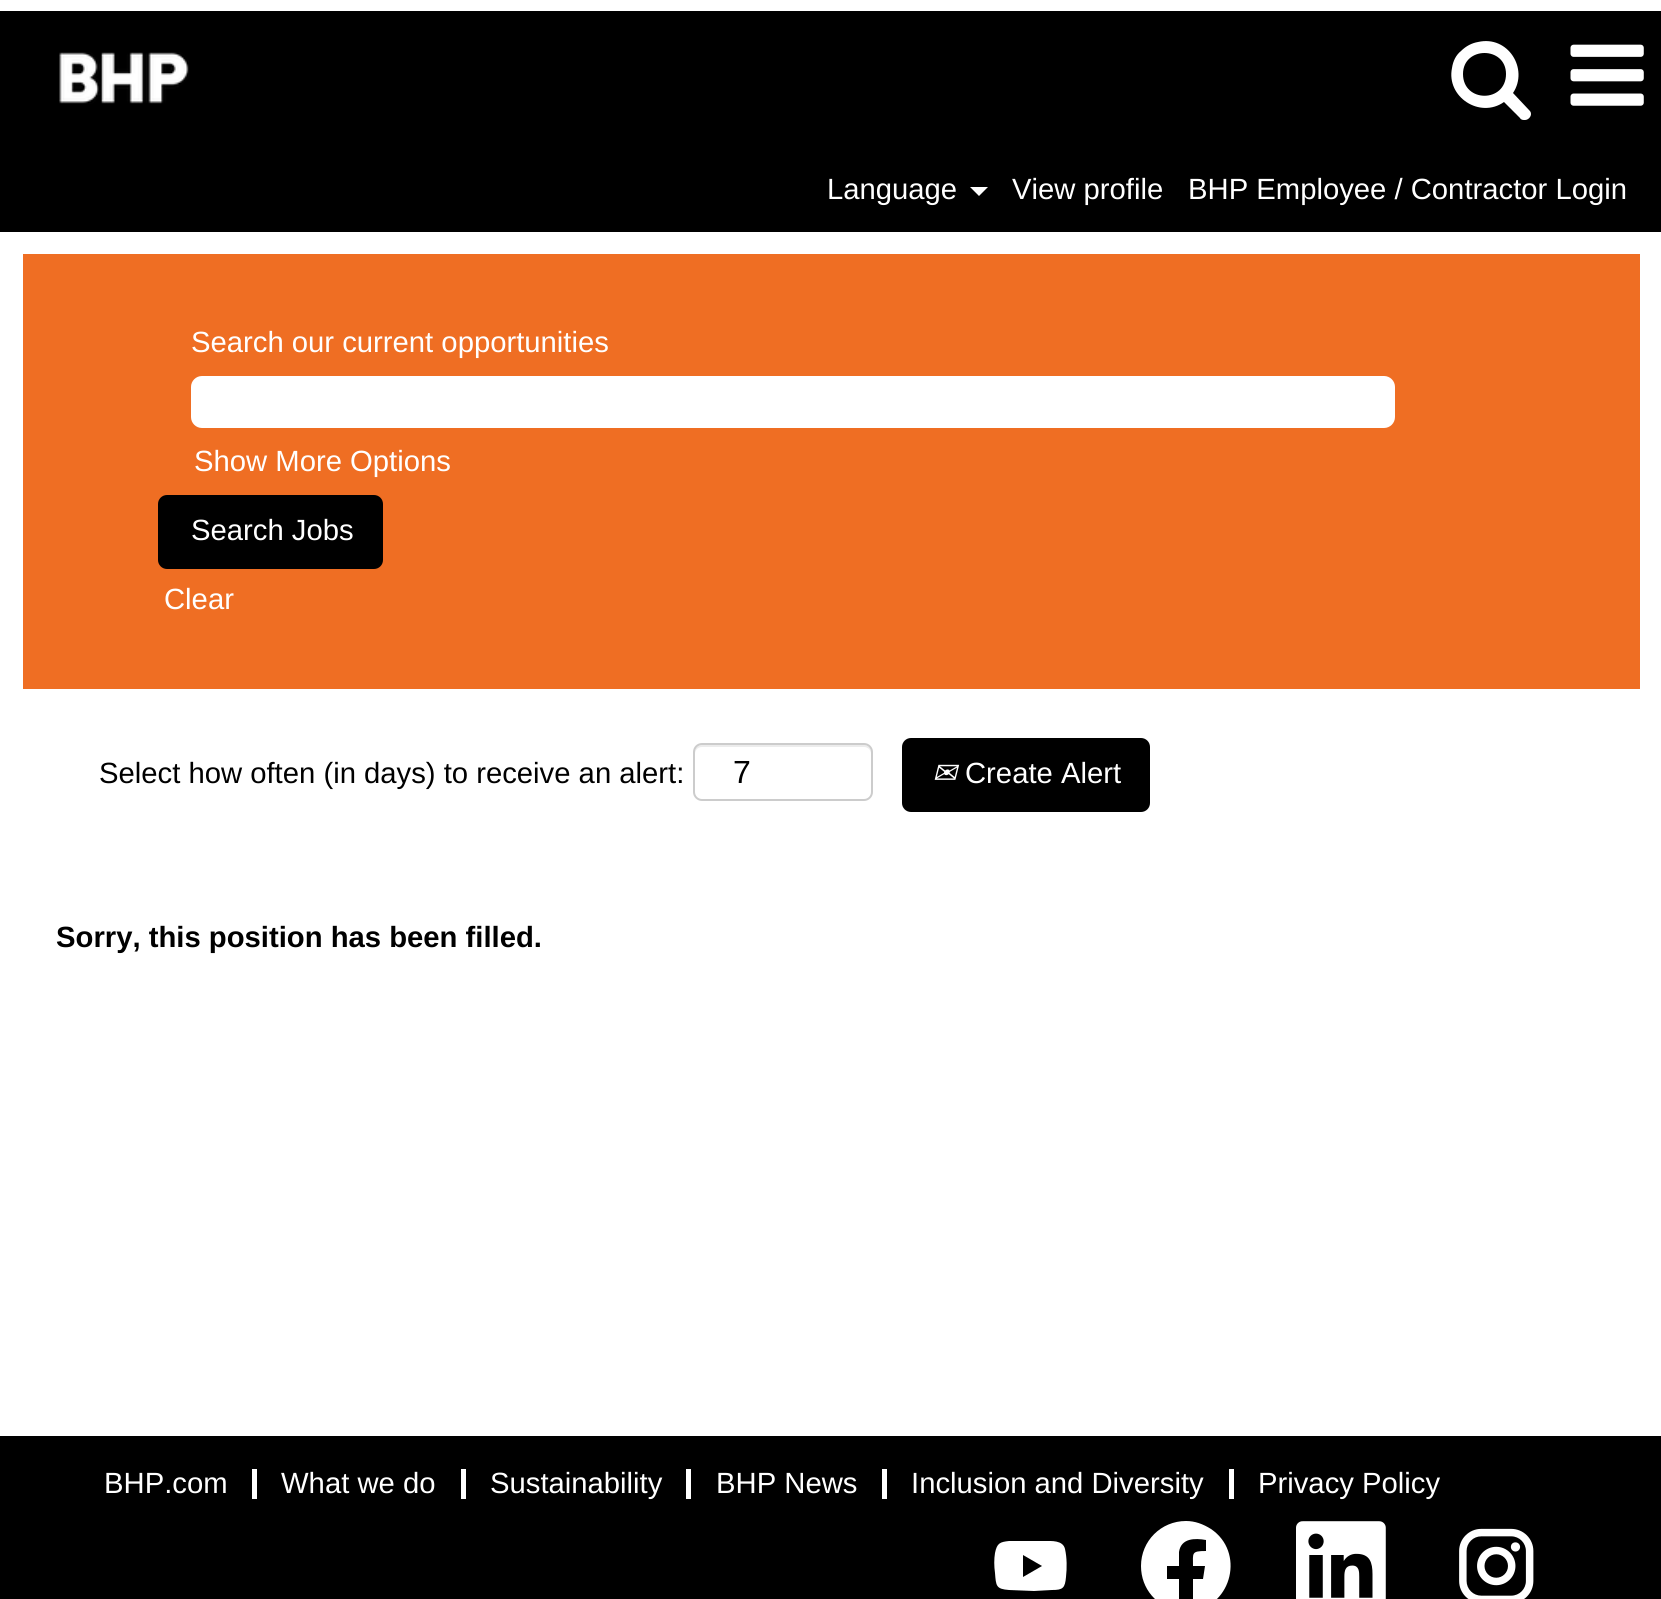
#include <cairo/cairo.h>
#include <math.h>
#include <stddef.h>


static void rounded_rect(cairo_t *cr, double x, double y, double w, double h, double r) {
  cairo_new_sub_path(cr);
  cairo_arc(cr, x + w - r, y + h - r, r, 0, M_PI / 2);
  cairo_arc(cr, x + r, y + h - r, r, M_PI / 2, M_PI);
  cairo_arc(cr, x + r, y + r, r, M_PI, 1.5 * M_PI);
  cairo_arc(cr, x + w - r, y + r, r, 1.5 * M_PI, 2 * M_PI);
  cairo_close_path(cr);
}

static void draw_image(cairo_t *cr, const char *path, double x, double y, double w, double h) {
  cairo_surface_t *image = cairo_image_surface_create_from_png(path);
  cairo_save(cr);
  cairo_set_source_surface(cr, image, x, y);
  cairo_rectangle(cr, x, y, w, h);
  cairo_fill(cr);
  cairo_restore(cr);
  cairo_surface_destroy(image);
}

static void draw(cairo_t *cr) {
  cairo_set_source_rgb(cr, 1, 1, 1);
  cairo_paint(cr);
  cairo_set_source_rgb(cr, 0, 0, 0);
  cairo_rectangle(cr, 0, 11, 1661, 221);
  cairo_fill(cr);
  draw_image(cr, "images/1.png", 59, 52, 130, 52);
  cairo_set_source_rgb(cr, 1, 1, 1);
  cairo_new_path(cr);
  cairo_move_to(cr, 1506, 74);
  cairo_curve_to(cr, 1506, 103, 1463, 103, 1463, 74);
  cairo_curve_to(cr, 1463, 46, 1506, 46, 1506, 74);
  cairo_close_path(cr);
  cairo_move_to(cr, 1531, 114);
  cairo_curve_to(cr, 1531, 112, 1530, 111, 1529, 110);
  cairo_line_to(cr, 1513, 93);
  cairo_curve_to(cr, 1529, 69, 1508, 35, 1478, 42);
  cairo_curve_to(cr, 1472, 43, 1466, 46, 1461, 51);
  cairo_curve_to(cr, 1456, 55, 1453, 61, 1452, 68);
  cairo_curve_to(cr, 1446, 97, 1480, 119, 1504, 102);
  cairo_line_to(cr, 1520, 118);
  cairo_curve_to(cr, 1521, 120, 1523, 120, 1525, 120);
  cairo_curve_to(cr, 1528, 120, 1531, 117, 1531, 114);
  cairo_close_path(cr);
  cairo_fill(cr);
  draw_image(cr, "images/2.png", 1570, 44, 74, 62);
  cairo_new_path(cr);
  cairo_move_to(cr, 970, 187);
  cairo_line_to(cr, 988, 187);
  cairo_line_to(cr, 979, 196);
  cairo_close_path(cr);
  cairo_fill(cr);
  cairo_set_source_rgb(cr, 239 / 255.0, 110 / 255.0, 35 / 255.0);
  cairo_rectangle(cr, 23, 254, 1617, 435);
  cairo_fill(cr);
  cairo_set_source_rgb(cr, 1, 1, 1);
  rounded_rect(cr, 191, 376, 1204, 52, 11);
  cairo_fill(cr);
  cairo_set_source_rgb(cr, 0, 0, 0);
  rounded_rect(cr, 158, 495, 225, 74, 9);
  cairo_fill(cr);
  cairo_set_source_rgb(cr, 236 / 255.0, 236 / 255.0, 236 / 255.0);
  cairo_new_path(cr);
  cairo_move_to(cr, 702, 747);
  cairo_line_to(cr, 864, 747);
  cairo_curve_to(cr, 868, 747, 871, 750, 871, 754);
  cairo_line_to(cr, 871, 752);
  cairo_curve_to(cr, 871, 748, 868, 745, 864, 745);
  cairo_line_to(cr, 702, 745);
  cairo_curve_to(cr, 698, 745, 695, 748, 695, 752);
  cairo_line_to(cr, 695, 754);
  cairo_curve_to(cr, 695, 750, 698, 747, 702, 747);
  cairo_close_path(cr);
  cairo_fill(cr);
  rounded_rect(cr, 694, 744, 178, 56, 8);
  cairo_set_source_rgb(cr, 204 / 255.0, 204 / 255.0, 204 / 255.0);
  cairo_stroke(cr);
  cairo_set_source_rgb(cr, 0, 0, 0);
  rounded_rect(cr, 902, 738, 248, 74, 9);
  cairo_fill(cr);
  cairo_rectangle(cr, 0, 1436, 1661, 163);
  cairo_fill(cr);
  cairo_set_source_rgb(cr, 1, 1, 1);
  cairo_rectangle(cr, 252, 1469, 5, 30);
  cairo_fill(cr);
  cairo_rectangle(cr, 461, 1469, 5, 30);
  cairo_fill(cr);
  cairo_rectangle(cr, 686, 1469, 5, 30);
  cairo_fill(cr);
  cairo_rectangle(cr, 882, 1469, 5, 30);
  cairo_fill(cr);
  cairo_rectangle(cr, 1229, 1469, 5, 30);
  cairo_fill(cr);
  cairo_new_path(cr);
  cairo_move_to(cr, 1065, 1549);
  cairo_curve_to(cr, 1063, 1540, 1051, 1541, 1045, 1541);
  cairo_line_to(cr, 1023, 1541);
  cairo_line_to(cr, 1009, 1541);
  cairo_curve_to(cr, 1000, 1542, 997, 1543, 995, 1553);
  cairo_curve_to(cr, 994, 1559, 994, 1566, 995, 1573);
  cairo_curve_to(cr, 996, 1586, 996, 1589, 1009, 1590);
  cairo_line_to(cr, 1034, 1591);
  cairo_line_to(cr, 1052, 1590);
  cairo_curve_to(cr, 1063, 1590, 1065, 1588, 1066, 1577);
  cairo_curve_to(cr, 1067, 1568, 1067, 1558, 1065, 1549);
  cairo_close_path(cr);
  cairo_move_to(cr, 1023, 1577);
  cairo_line_to(cr, 1023, 1555);
  cairo_line_to(cr, 1042, 1566);
  cairo_close_path(cr);
  cairo_fill(cr);
  cairo_new_path(cr);
  cairo_move_to(cr, 1186, 1521);
  cairo_curve_to(cr, 1161, 1521, 1141, 1541, 1141, 1566);
  cairo_curve_to(cr, 1141, 1589, 1157, 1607, 1179, 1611);
  cairo_line_to(cr, 1179, 1579);
  cairo_line_to(cr, 1167, 1579);
  cairo_line_to(cr, 1167, 1566);
  cairo_line_to(cr, 1179, 1566);
  cairo_line_to(cr, 1179, 1552);
  cairo_curve_to(cr, 1181, 1538, 1195, 1538, 1206, 1540);
  cairo_line_to(cr, 1206, 1551);
  cairo_curve_to(cr, 1191, 1551, 1193, 1553, 1193, 1566);
  cairo_line_to(cr, 1205, 1566);
  cairo_line_to(cr, 1203, 1579);
  cairo_line_to(cr, 1193, 1579);
  cairo_line_to(cr, 1193, 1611);
  cairo_curve_to(cr, 1232, 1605, 1245, 1552, 1211, 1529);
  cairo_curve_to(cr, 1203, 1524, 1195, 1521, 1186, 1521);
  cairo_close_path(cr);
  cairo_fill(cr);
  draw_image(cr, "images/3.png", 1296, 1521, 90, 78);
  draw_image(cr, "images/4.png", 1459, 1528, 75, 71);
  cairo_select_font_face(cr, "Liberation Sans", CAIRO_FONT_SLANT_NORMAL, CAIRO_FONT_WEIGHT_NORMAL);
  cairo_set_font_size(cr, 29.25);
  cairo_move_to(cr, 827, 199);
  cairo_show_text(cr, "Language");
  cairo_move_to(cr, 1012, 199);
  cairo_show_text(cr, "View profile");
  cairo_move_to(cr, 1188, 199);
  cairo_show_text(cr, "BHP Employee / Contractor Login");
  cairo_move_to(cr, 191, 352);
  cairo_show_text(cr, "Search our current opportunities");
  cairo_move_to(cr, 194, 471);
  cairo_show_text(cr, "Show More Options");
  cairo_move_to(cr, 191, 540);
  cairo_show_text(cr, "Search Jobs");
  cairo_move_to(cr, 164, 609);
  cairo_show_text(cr, "Clear");
  cairo_set_source_rgb(cr, 0, 0, 0);
  cairo_move_to(cr, 99, 783);
  cairo_show_text(cr, "Select how often (in days) to receive an alert:");
  cairo_set_font_size(cr, 32);
  cairo_move_to(cr, 733, 783);
  cairo_show_text(cr, "7");
  cairo_select_font_face(cr, "DejaVu Sans", CAIRO_FONT_SLANT_ITALIC, CAIRO_FONT_WEIGHT_NORMAL);
  cairo_set_font_size(cr, 29.25);
  cairo_set_source_rgb(cr, 1, 1, 1);
  cairo_move_to(cr, 932, 783);
  cairo_show_text(cr, "✉");
  cairo_select_font_face(cr, "Liberation Sans", CAIRO_FONT_SLANT_NORMAL, CAIRO_FONT_WEIGHT_NORMAL);
  cairo_move_to(cr, 965, 783);
  cairo_show_text(cr, "Create Alert");
  cairo_select_font_face(cr, "Liberation Sans", CAIRO_FONT_SLANT_NORMAL, CAIRO_FONT_WEIGHT_BOLD);
  cairo_set_source_rgb(cr, 0, 0, 0);
  cairo_move_to(cr, 56, 947);
  cairo_show_text(cr, "Sorry, this position has been filled.");
  cairo_select_font_face(cr, "Liberation Sans", CAIRO_FONT_SLANT_NORMAL, CAIRO_FONT_WEIGHT_NORMAL);
  cairo_set_source_rgb(cr, 1, 1, 1);
  cairo_move_to(cr, 104, 1493);
  cairo_show_text(cr, "BHP.com");
  cairo_move_to(cr, 281, 1493);
  cairo_show_text(cr, "What we do");
  cairo_move_to(cr, 490, 1493);
  cairo_show_text(cr, "Sustainability");
  cairo_move_to(cr, 716, 1493);
  cairo_show_text(cr, "BHP News");
  cairo_move_to(cr, 911, 1493);
  cairo_show_text(cr, "Inclusion and Diversity");
  cairo_move_to(cr, 1258, 1493);
  cairo_show_text(cr, "Privacy Policy");
}

int main(void) {
  cairo_surface_t *surface = cairo_image_surface_create(CAIRO_FORMAT_RGB24, 1661, 1599);
  cairo_t *cr = cairo_create(surface);
  cairo_font_options_t *options = cairo_font_options_create();
  cairo_font_options_set_hint_metrics(options, CAIRO_HINT_METRICS_OFF);
  cairo_font_options_set_hint_style(options, CAIRO_HINT_STYLE_NONE);
  cairo_set_font_options(cr, options);
  cairo_set_miter_limit(cr, 4);
  draw(cr);
  cairo_surface_write_to_png(surface, "out.png");
  cairo_font_options_destroy(options);
  cairo_destroy(cr);
  cairo_surface_destroy(surface);
  return 0;
}
